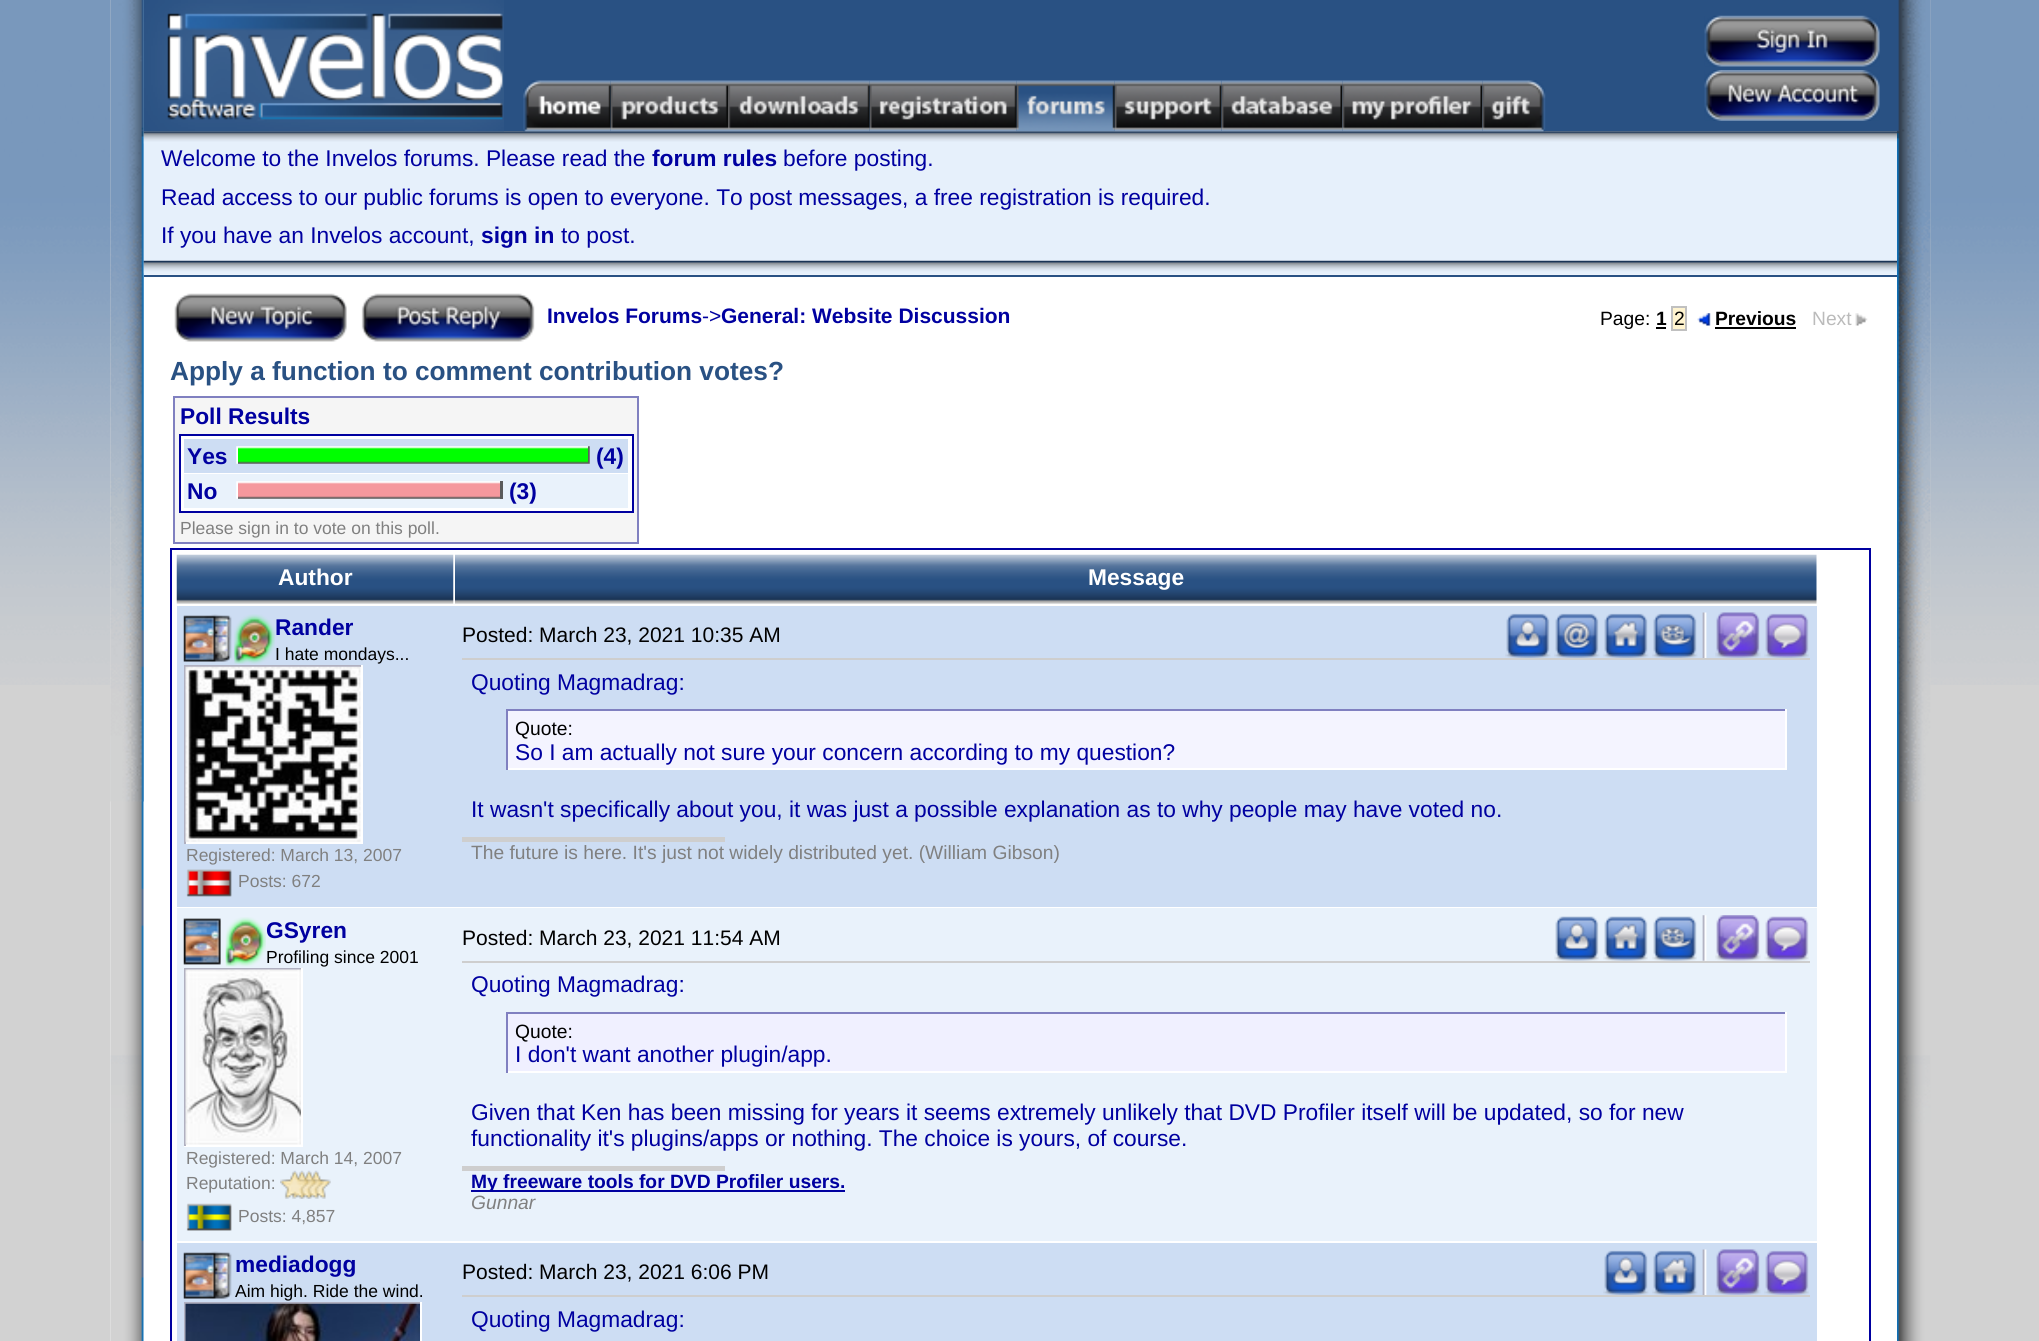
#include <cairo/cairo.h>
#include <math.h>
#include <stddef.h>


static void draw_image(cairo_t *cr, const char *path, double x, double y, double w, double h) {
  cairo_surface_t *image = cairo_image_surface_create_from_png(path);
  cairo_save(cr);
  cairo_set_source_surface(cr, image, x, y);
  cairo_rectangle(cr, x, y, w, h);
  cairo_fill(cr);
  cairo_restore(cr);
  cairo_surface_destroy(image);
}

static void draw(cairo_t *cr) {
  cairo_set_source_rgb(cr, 210 / 255.0, 210 / 255.0, 210 / 255.0);
  cairo_paint(cr);
  draw_image(cr, "images/1.png", 0, 0, 2039, 685);
  cairo_set_source_rgb(cr, 1, 1, 1);
  cairo_rectangle(cr, 110, 0, 1787, 1341);
  cairo_fill(cr);
  draw_image(cr, "images/2.png", 110, 0, 34, 1341);
  draw_image(cr, "images/16.png", 143, 131, 1754, 130);
  draw_image(cr, "images/17.png", 143, 260, 1754, 15);
  draw_image(cr, "images/3.png", 110, 0, 34, 802);
  cairo_set_source_rgb(cr, 41 / 255.0, 81 / 255.0, 131 / 255.0);
  cairo_rectangle(cr, 504, 0, 1393, 131);
  cairo_fill(cr);
  draw_image(cr, "images/4.png", 143, 0, 361, 132);
  draw_image(cr, "images/5.png", 1704, 15, 176, 52);
  draw_image(cr, "images/6.png", 1704, 70, 176, 51);
  draw_image(cr, "images/7.png", 523, 80, 88, 52);
  draw_image(cr, "images/8.png", 610, 80, 118, 52);
  draw_image(cr, "images/9.png", 728, 80, 142, 52);
  draw_image(cr, "images/10.png", 869, 80, 148, 52);
  draw_image(cr, "images/11.png", 1016, 80, 99, 52);
  draw_image(cr, "images/12.png", 1114, 80, 108, 52);
  draw_image(cr, "images/13.png", 1221, 80, 122, 52);
  draw_image(cr, "images/14.png", 1342, 80, 141, 52);
  draw_image(cr, "images/15.png", 1482, 80, 64, 52);
  cairo_rectangle(cr, 144, 275, 1753, 2);
  cairo_fill(cr);
  draw_image(cr, "images/18.png", 174, 293, 173, 49);
  draw_image(cr, "images/19.png", 361, 293, 174, 49);
  cairo_set_source_rgb(cr, 0, 0, 0);
  cairo_rectangle(cr, 1656, 327, 10, 2);
  cairo_fill(cr);
  cairo_set_source_rgb(cr, 1, 244 / 255.0, 207 / 255.0);
  cairo_rectangle(cr, 1672, 307, 14, 23);
  cairo_fill_preserve(cr);
  cairo_set_source_rgb(cr, 192 / 255.0, 192 / 255.0, 192 / 255.0);
  cairo_stroke(cr);
  draw_image(cr, "images/20.png", 1697, 313, 14, 13);
  cairo_set_source_rgb(cr, 0, 0, 0);
  cairo_rectangle(cr, 1715, 327, 81, 2);
  cairo_fill(cr);
  draw_image(cr, "images/21.png", 1855, 313, 13, 13);
  cairo_set_source_rgb(cr, 245 / 255.0, 245 / 255.0, 245 / 255.0);
  cairo_rectangle(cr, 174, 397, 464, 146);
  cairo_fill_preserve(cr);
  cairo_set_source_rgb(cr, 128 / 255.0, 128 / 255.0, 192 / 255.0);
  cairo_stroke(cr);
  cairo_set_source_rgb(cr, 1, 1, 1);
  cairo_rectangle(cr, 180, 435, 453, 77);
  cairo_fill_preserve(cr);
  cairo_set_source_rgb(cr, 0, 0, 160 / 255.0);
  cairo_stroke(cr);
  cairo_set_source_rgb(cr, 205 / 255.0, 221 / 255.0, 243 / 255.0);
  cairo_rectangle(cr, 184, 439, 444, 34);
  cairo_fill(cr);
  draw_image(cr, "images/22.png", 236, 446, 2, 18);
  draw_image(cr, "images/23.png", 238, 446, 350, 18);
  draw_image(cr, "images/24.png", 588, 446, 2, 18);
  cairo_set_source_rgb(cr, 233 / 255.0, 242 / 255.0, 251 / 255.0);
  cairo_rectangle(cr, 184, 474, 444, 34);
  cairo_fill(cr);
  draw_image(cr, "images/25.png", 236, 481, 2, 18);
  draw_image(cr, "images/26.png", 238, 481, 262, 18);
  cairo_set_source_rgb(cr, 91 / 255.0, 91 / 255.0, 91 / 255.0);
  cairo_rectangle(cr, 500, 481, 3, 18);
  cairo_fill(cr);
  cairo_rectangle(cr, 171, 549, 1699, 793);
  cairo_set_source_rgb(cr, 0, 0, 160 / 255.0);
  cairo_stroke(cr);
  draw_image(cr, "images/27.png", 176, 554, 278, 50);
  draw_image(cr, "images/28.png", 455, 554, 1362, 50);
  cairo_set_source_rgb(cr, 205 / 255.0, 221 / 255.0, 243 / 255.0);
  cairo_rectangle(cr, 177, 606, 1640, 301);
  cairo_fill(cr);
  draw_image(cr, "images/29.png", 183, 614, 49, 48);
  draw_image(cr, "images/30.png", 234, 614, 41, 50);
  cairo_set_source_rgb(cr, 254 / 255.0, 254 / 255.0, 254 / 255.0);
  cairo_rectangle(cr, 186, 667, 175, 177);
  cairo_fill(cr);
  cairo_set_source_rgb(cr, 176 / 255.0, 176 / 255.0, 192 / 255.0);
  cairo_rectangle(cr, 184, 665, 178, 2);
  cairo_fill(cr);
  cairo_set_source_rgb(cr, 1, 1, 1);
  cairo_rectangle(cr, 361, 665, 2, 179);
  cairo_fill(cr);
  cairo_set_source_rgb(cr, 176 / 255.0, 176 / 255.0, 192 / 255.0);
  cairo_rectangle(cr, 184, 665, 2, 179);
  cairo_fill(cr);
  draw_image(cr, "images/31.png", 185, 666, 176, 176);
  draw_image(cr, "images/32.png", 186, 869, 46, 28);
  draw_image(cr, "images/33.png", 1505, 613, 46, 45);
  draw_image(cr, "images/34.png", 1554, 613, 46, 45);
  draw_image(cr, "images/35.png", 1603, 613, 46, 45);
  draw_image(cr, "images/36.png", 1652, 613, 46, 45);
  draw_image(cr, "images/37.png", 1702, 612, 5, 46);
  draw_image(cr, "images/38.png", 1715, 612, 46, 46);
  draw_image(cr, "images/39.png", 1764, 613, 45, 45);
  cairo_set_source_rgb(cr, 206 / 255.0, 206 / 255.0, 206 / 255.0);
  cairo_rectangle(cr, 462, 658, 1348, 2);
  cairo_fill(cr);
  cairo_set_source_rgb(cr, 244 / 255.0, 244 / 255.0, 1);
  cairo_rectangle(cr, 508, 711, 1277, 57);
  cairo_fill(cr);
  cairo_set_source_rgb(cr, 128 / 255.0, 128 / 255.0, 192 / 255.0);
  cairo_rectangle(cr, 506, 709, 1281, 2);
  cairo_fill(cr);
  cairo_set_source_rgb(cr, 1, 1, 1);
  cairo_rectangle(cr, 1785, 709, 2, 61);
  cairo_fill(cr);
  cairo_rectangle(cr, 506, 768, 1281, 2);
  cairo_fill(cr);
  cairo_set_source_rgb(cr, 128 / 255.0, 128 / 255.0, 192 / 255.0);
  cairo_rectangle(cr, 506, 709, 2, 61);
  cairo_fill(cr);
  cairo_set_source_rgb(cr, 206 / 255.0, 206 / 255.0, 206 / 255.0);
  cairo_rectangle(cr, 462, 837, 263, 5);
  cairo_fill(cr);
  cairo_set_source_rgb(cr, 233 / 255.0, 242 / 255.0, 251 / 255.0);
  cairo_rectangle(cr, 177, 908, 1640, 333);
  cairo_fill(cr);
  draw_image(cr, "images/40.png", 183, 918, 38, 47);
  draw_image(cr, "images/41.png", 225, 917, 41, 50);
  cairo_set_source_rgb(cr, 254 / 255.0, 254 / 255.0, 254 / 255.0);
  cairo_rectangle(cr, 186, 1144, 115, 1);
  cairo_fill(cr);
  cairo_set_source_rgb(cr, 176 / 255.0, 176 / 255.0, 192 / 255.0);
  cairo_rectangle(cr, 184, 968, 119, 2);
  cairo_fill(cr);
  cairo_set_source_rgb(cr, 1, 1, 1);
  cairo_rectangle(cr, 301, 968, 2, 178);
  cairo_fill(cr);
  cairo_rectangle(cr, 184, 1145, 119, 2);
  cairo_fill(cr);
  cairo_set_source_rgb(cr, 176 / 255.0, 176 / 255.0, 192 / 255.0);
  cairo_rectangle(cr, 184, 968, 2, 178);
  cairo_fill(cr);
  draw_image(cr, "images/42.png", 185, 969, 116, 176);
  draw_image(cr, "images/43.png", 280, 1170, 51, 29);
  draw_image(cr, "images/44.png", 186, 1203, 46, 28);
  draw_image(cr, "images/45.png", 1554, 916, 45, 45);
  draw_image(cr, "images/46.png", 1603, 916, 45, 45);
  draw_image(cr, "images/47.png", 1652, 916, 45, 45);
  draw_image(cr, "images/48.png", 1702, 915, 5, 46);
  draw_image(cr, "images/49.png", 1715, 915, 46, 46);
  draw_image(cr, "images/50.png", 1764, 916, 45, 45);
  cairo_set_source_rgb(cr, 206 / 255.0, 206 / 255.0, 206 / 255.0);
  cairo_rectangle(cr, 462, 961, 1348, 2);
  cairo_fill(cr);
  cairo_set_source_rgb(cr, 240 / 255.0, 240 / 255.0, 1);
  cairo_rectangle(cr, 508, 1014, 1277, 57);
  cairo_fill(cr);
  cairo_set_source_rgb(cr, 128 / 255.0, 128 / 255.0, 192 / 255.0);
  cairo_rectangle(cr, 506, 1012, 1281, 2);
  cairo_fill(cr);
  cairo_set_source_rgb(cr, 1, 1, 1);
  cairo_rectangle(cr, 1785, 1012, 2, 61);
  cairo_fill(cr);
  cairo_rectangle(cr, 506, 1071, 1281, 2);
  cairo_fill(cr);
  cairo_set_source_rgb(cr, 128 / 255.0, 128 / 255.0, 192 / 255.0);
  cairo_rectangle(cr, 506, 1012, 2, 61);
  cairo_fill(cr);
  cairo_set_source_rgb(cr, 206 / 255.0, 206 / 255.0, 206 / 255.0);
  cairo_rectangle(cr, 462, 1166, 263, 5);
  cairo_fill(cr);
  cairo_set_source_rgb(cr, 0, 0, 160 / 255.0);
  cairo_rectangle(cr, 471, 1190, 374, 2);
  cairo_fill(cr);
  cairo_set_source_rgb(cr, 205 / 255.0, 221 / 255.0, 243 / 255.0);
  cairo_rectangle(cr, 177, 1243, 1640, 98);
  cairo_fill(cr);
  draw_image(cr, "images/29.png", 183, 1251, 49, 48);
  cairo_set_source_rgb(cr, 176 / 255.0, 176 / 255.0, 192 / 255.0);
  cairo_rectangle(cr, 184, 1302, 238, 2);
  cairo_fill(cr);
  cairo_set_source_rgb(cr, 1, 1, 1);
  cairo_rectangle(cr, 420, 1302, 2, 39);
  cairo_fill(cr);
  cairo_set_source_rgb(cr, 176 / 255.0, 176 / 255.0, 192 / 255.0);
  cairo_rectangle(cr, 184, 1302, 2, 39);
  cairo_fill(cr);
  draw_image(cr, "images/51.png", 185, 1303, 235, 38);
  draw_image(cr, "images/52.png", 1603, 1250, 46, 45);
  draw_image(cr, "images/35.png", 1652, 1250, 46, 45);
  draw_image(cr, "images/37.png", 1702, 1249, 5, 46);
  draw_image(cr, "images/38.png", 1715, 1249, 46, 46);
  draw_image(cr, "images/39.png", 1764, 1250, 45, 45);
  cairo_set_source_rgb(cr, 206 / 255.0, 206 / 255.0, 206 / 255.0);
  cairo_rectangle(cr, 462, 1295, 1348, 2);
  cairo_fill(cr);
  draw_image(cr, "images/53.png", 1897, 0, 34, 1341);
  draw_image(cr, "images/54.png", 1897, 0, 34, 802);
  cairo_select_font_face(cr, "Liberation Sans", CAIRO_FONT_SLANT_NORMAL, CAIRO_FONT_WEIGHT_NORMAL);
  cairo_set_font_size(cr, 22.75);
  cairo_set_source_rgb(cr, 0, 0, 160 / 255.0);
  cairo_move_to(cr, 161, 166);
  cairo_show_text(cr, "Welcome to the Invelos forums. Please read the");
  cairo_select_font_face(cr, "Liberation Sans", CAIRO_FONT_SLANT_NORMAL, CAIRO_FONT_WEIGHT_BOLD);
  cairo_move_to(cr, 652, 166);
  cairo_show_text(cr, "forum rules");
  cairo_select_font_face(cr, "Liberation Sans", CAIRO_FONT_SLANT_NORMAL, CAIRO_FONT_WEIGHT_NORMAL);
  cairo_move_to(cr, 783, 166);
  cairo_show_text(cr, "before posting.");
  cairo_move_to(cr, 161, 205);
  cairo_show_text(cr, "Read access to our public forums is open to everyone. To post messages, a free registration is required.");
  cairo_move_to(cr, 161, 243);
  cairo_show_text(cr, "If you have an Invelos account,");
  cairo_select_font_face(cr, "Liberation Sans", CAIRO_FONT_SLANT_NORMAL, CAIRO_FONT_WEIGHT_BOLD);
  cairo_move_to(cr, 481, 243);
  cairo_show_text(cr, "sign in");
  cairo_select_font_face(cr, "Liberation Sans", CAIRO_FONT_SLANT_NORMAL, CAIRO_FONT_WEIGHT_NORMAL);
  cairo_move_to(cr, 561, 243);
  cairo_show_text(cr, "to post.");
  cairo_select_font_face(cr, "Liberation Sans", CAIRO_FONT_SLANT_NORMAL, CAIRO_FONT_WEIGHT_BOLD);
  cairo_set_font_size(cr, 21);
  cairo_move_to(cr, 547, 323);
  cairo_show_text(cr, "Invelos Forums");
  cairo_select_font_face(cr, "Liberation Sans", CAIRO_FONT_SLANT_NORMAL, CAIRO_FONT_WEIGHT_NORMAL);
  cairo_move_to(cr, 702, 323);
  cairo_show_text(cr, "->");
  cairo_select_font_face(cr, "Liberation Sans", CAIRO_FONT_SLANT_NORMAL, CAIRO_FONT_WEIGHT_BOLD);
  cairo_move_to(cr, 721, 323);
  cairo_show_text(cr, "General: Website Discussion");
  cairo_select_font_face(cr, "Liberation Sans", CAIRO_FONT_SLANT_NORMAL, CAIRO_FONT_WEIGHT_NORMAL);
  cairo_set_font_size(cr, 19.25);
  cairo_set_source_rgb(cr, 0, 0, 0);
  cairo_move_to(cr, 1600, 325);
  cairo_show_text(cr, "Page:");
  cairo_select_font_face(cr, "Liberation Sans", CAIRO_FONT_SLANT_NORMAL, CAIRO_FONT_WEIGHT_BOLD);
  cairo_move_to(cr, 1656, 325);
  cairo_show_text(cr, "1");
  cairo_select_font_face(cr, "Liberation Sans", CAIRO_FONT_SLANT_NORMAL, CAIRO_FONT_WEIGHT_NORMAL);
  cairo_move_to(cr, 1674, 325);
  cairo_show_text(cr, "2");
  cairo_select_font_face(cr, "Liberation Sans", CAIRO_FONT_SLANT_NORMAL, CAIRO_FONT_WEIGHT_BOLD);
  cairo_move_to(cr, 1715, 325);
  cairo_show_text(cr, "Previous");
  cairo_select_font_face(cr, "Liberation Sans", CAIRO_FONT_SLANT_NORMAL, CAIRO_FONT_WEIGHT_NORMAL);
  cairo_set_source_rgb(cr, 187 / 255.0, 187 / 255.0, 187 / 255.0);
  cairo_move_to(cr, 1812, 325);
  cairo_show_text(cr, "Next");
  cairo_select_font_face(cr, "Liberation Sans", CAIRO_FONT_SLANT_NORMAL, CAIRO_FONT_WEIGHT_BOLD);
  cairo_set_font_size(cr, 26.25);
  cairo_set_source_rgb(cr, 41 / 255.0, 81 / 255.0, 131 / 255.0);
  cairo_move_to(cr, 170, 380);
  cairo_show_text(cr, "Apply a function to comment contribution votes?");
  cairo_set_font_size(cr, 22.75);
  cairo_set_source_rgb(cr, 0, 0, 160 / 255.0);
  cairo_move_to(cr, 180, 424);
  cairo_show_text(cr, "Poll Results");
  cairo_move_to(cr, 187, 464);
  cairo_show_text(cr, "Yes");
  cairo_move_to(cr, 596, 464);
  cairo_show_text(cr, "(4)");
  cairo_move_to(cr, 187, 499);
  cairo_show_text(cr, "No");
  cairo_move_to(cr, 509, 499);
  cairo_show_text(cr, "(3)");
  cairo_select_font_face(cr, "Liberation Sans", CAIRO_FONT_SLANT_NORMAL, CAIRO_FONT_WEIGHT_NORMAL);
  cairo_set_font_size(cr, 17.5);
  cairo_set_source_rgb(cr, 128 / 255.0, 128 / 255.0, 128 / 255.0);
  cairo_move_to(cr, 180, 534);
  cairo_show_text(cr, "Please sign in to vote on this poll.");
  cairo_select_font_face(cr, "Liberation Sans", CAIRO_FONT_SLANT_NORMAL, CAIRO_FONT_WEIGHT_BOLD);
  cairo_set_font_size(cr, 22.75);
  cairo_set_source_rgb(cr, 1, 1, 1);
  cairo_move_to(cr, 278, 585);
  cairo_show_text(cr, "Author");
  cairo_move_to(cr, 1088, 585);
  cairo_show_text(cr, "Message");
  cairo_set_source_rgb(cr, 0, 0, 160 / 255.0);
  cairo_move_to(cr, 275, 635);
  cairo_show_text(cr, "Rander");
  cairo_select_font_face(cr, "Liberation Sans", CAIRO_FONT_SLANT_NORMAL, CAIRO_FONT_WEIGHT_NORMAL);
  cairo_set_font_size(cr, 17.5);
  cairo_set_source_rgb(cr, 0, 0, 0);
  cairo_move_to(cr, 275, 660);
  cairo_show_text(cr, "I hate mondays...");
  cairo_set_source_rgb(cr, 128 / 255.0, 128 / 255.0, 128 / 255.0);
  cairo_move_to(cr, 186, 861);
  cairo_show_text(cr, "Registered: March 13, 2007");
  cairo_move_to(cr, 238, 887);
  cairo_show_text(cr, "Posts: 672");
  cairo_set_font_size(cr, 21);
  cairo_set_source_rgb(cr, 0, 0, 0);
  cairo_move_to(cr, 462, 642);
  cairo_show_text(cr, "Posted: March 23, 2021 10:35 AM");
  cairo_set_font_size(cr, 22.75);
  cairo_set_source_rgb(cr, 0, 0, 160 / 255.0);
  cairo_move_to(cr, 471, 690);
  cairo_show_text(cr, "Quoting Magmadrag:");
  cairo_set_font_size(cr, 19.25);
  cairo_set_source_rgb(cr, 0, 0, 0);
  cairo_move_to(cr, 515, 735);
  cairo_show_text(cr, "Quote:");
  cairo_set_font_size(cr, 22.75);
  cairo_set_source_rgb(cr, 0, 0, 160 / 255.0);
  cairo_move_to(cr, 515, 760);
  cairo_show_text(cr, "So I am actually not sure your concern according to my question?");
  cairo_move_to(cr, 471, 817);
  cairo_show_text(cr, "It wasn't specifically about you, it was just a possible explanation as to why people may have voted no.");
  cairo_set_font_size(cr, 19.25);
  cairo_set_source_rgb(cr, 128 / 255.0, 128 / 255.0, 128 / 255.0);
  cairo_move_to(cr, 471, 859);
  cairo_show_text(cr, "The future is here. It's just not widely distributed yet. (William Gibson)");
  cairo_select_font_face(cr, "Liberation Sans", CAIRO_FONT_SLANT_NORMAL, CAIRO_FONT_WEIGHT_BOLD);
  cairo_set_font_size(cr, 22.75);
  cairo_set_source_rgb(cr, 0, 0, 160 / 255.0);
  cairo_move_to(cr, 266, 938);
  cairo_show_text(cr, "GSyren");
  cairo_select_font_face(cr, "Liberation Sans", CAIRO_FONT_SLANT_NORMAL, CAIRO_FONT_WEIGHT_NORMAL);
  cairo_set_font_size(cr, 17.5);
  cairo_set_source_rgb(cr, 0, 0, 0);
  cairo_move_to(cr, 266, 963);
  cairo_show_text(cr, "Profiling since 2001");
  cairo_set_source_rgb(cr, 128 / 255.0, 128 / 255.0, 128 / 255.0);
  cairo_move_to(cr, 186, 1164);
  cairo_show_text(cr, "Registered: March 14, 2007");
  cairo_move_to(cr, 186, 1189);
  cairo_show_text(cr, "Reputation:");
  cairo_move_to(cr, 238, 1222);
  cairo_show_text(cr, "Posts: 4,857");
  cairo_set_font_size(cr, 21);
  cairo_set_source_rgb(cr, 0, 0, 0);
  cairo_move_to(cr, 462, 945);
  cairo_show_text(cr, "Posted: March 23, 2021 11:54 AM");
  cairo_set_font_size(cr, 22.75);
  cairo_set_source_rgb(cr, 0, 0, 160 / 255.0);
  cairo_move_to(cr, 471, 992);
  cairo_show_text(cr, "Quoting Magmadrag:");
  cairo_set_font_size(cr, 19.25);
  cairo_set_source_rgb(cr, 0, 0, 0);
  cairo_move_to(cr, 515, 1038);
  cairo_show_text(cr, "Quote:");
  cairo_set_font_size(cr, 22.75);
  cairo_set_source_rgb(cr, 0, 0, 160 / 255.0);
  cairo_move_to(cr, 515, 1062);
  cairo_show_text(cr, "I don't want another plugin/app.");
  cairo_move_to(cr, 471, 1120);
  cairo_show_text(cr, "Given that Ken has been missing for years it seems extremely unlikely that DVD Profiler itself will be updated, so for new");
  cairo_move_to(cr, 471, 1146);
  cairo_show_text(cr, "functionality it's plugins/apps or nothing. The choice is yours, of course.");
  cairo_select_font_face(cr, "Liberation Sans", CAIRO_FONT_SLANT_NORMAL, CAIRO_FONT_WEIGHT_BOLD);
  cairo_set_font_size(cr, 19.25);
  cairo_move_to(cr, 471, 1188);
  cairo_show_text(cr, "My freeware tools for DVD Profiler users.");
  cairo_select_font_face(cr, "Liberation Sans", CAIRO_FONT_SLANT_ITALIC, CAIRO_FONT_WEIGHT_NORMAL);
  cairo_set_source_rgb(cr, 128 / 255.0, 128 / 255.0, 128 / 255.0);
  cairo_move_to(cr, 471, 1209);
  cairo_show_text(cr, "Gunnar");
  cairo_select_font_face(cr, "Liberation Sans", CAIRO_FONT_SLANT_NORMAL, CAIRO_FONT_WEIGHT_BOLD);
  cairo_set_font_size(cr, 22.75);
  cairo_set_source_rgb(cr, 0, 0, 160 / 255.0);
  cairo_move_to(cr, 235, 1272);
  cairo_show_text(cr, "mediadogg");
  cairo_select_font_face(cr, "Liberation Sans", CAIRO_FONT_SLANT_NORMAL, CAIRO_FONT_WEIGHT_NORMAL);
  cairo_set_font_size(cr, 17.5);
  cairo_set_source_rgb(cr, 0, 0, 0);
  cairo_move_to(cr, 235, 1297);
  cairo_show_text(cr, "Aim high. Ride the wind.");
  cairo_set_font_size(cr, 21);
  cairo_move_to(cr, 462, 1279);
  cairo_show_text(cr, "Posted: March 23, 2021 6:06 PM");
  cairo_set_font_size(cr, 22.75);
  cairo_set_source_rgb(cr, 0, 0, 160 / 255.0);
  cairo_move_to(cr, 471, 1327);
  cairo_show_text(cr, "Quoting Magmadrag:");
}

int main(void) {
  cairo_surface_t *surface = cairo_image_surface_create(CAIRO_FORMAT_RGB24, 2039, 1341);
  cairo_t *cr = cairo_create(surface);
  cairo_font_options_t *options = cairo_font_options_create();
  cairo_font_options_set_hint_metrics(options, CAIRO_HINT_METRICS_OFF);
  cairo_font_options_set_hint_style(options, CAIRO_HINT_STYLE_NONE);
  cairo_set_font_options(cr, options);
  cairo_set_miter_limit(cr, 4);
  draw(cr);
  cairo_surface_write_to_png(surface, "out.png");
  cairo_font_options_destroy(options);
  cairo_destroy(cr);
  cairo_surface_destroy(surface);
  return 0;
}
